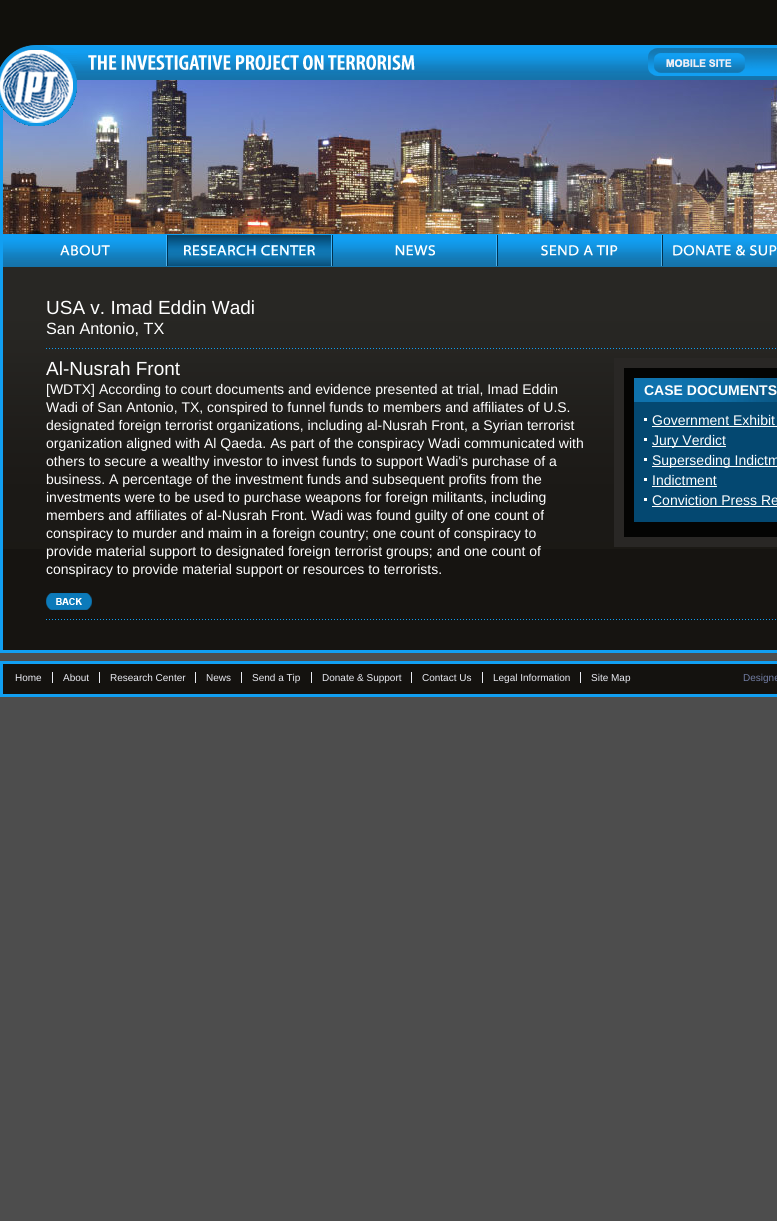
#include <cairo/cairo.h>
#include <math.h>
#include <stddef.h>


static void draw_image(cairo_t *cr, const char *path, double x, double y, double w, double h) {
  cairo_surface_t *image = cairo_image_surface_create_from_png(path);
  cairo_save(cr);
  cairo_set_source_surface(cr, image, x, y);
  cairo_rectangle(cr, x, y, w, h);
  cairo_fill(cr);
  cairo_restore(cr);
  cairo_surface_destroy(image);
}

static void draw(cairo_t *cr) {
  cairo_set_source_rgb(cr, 77 / 255.0, 77 / 255.0, 77 / 255.0);
  cairo_paint(cr);
  draw_image(cr, "images/1.png", 0, 0, 777, 45);
  draw_image(cr, "images/2.png", 77, 45, 700, 35);
  cairo_set_source_rgb(cr, 17 / 255.0, 159 / 255.0, 242 / 255.0);
  cairo_rectangle(cr, 0, 105, 3, 162);
  cairo_fill(cr);
  draw_image(cr, "images/7.png", 3, 80, 774, 154);
  draw_image(cr, "images/3.png", 0, 45, 77, 81);
  draw_image(cr, "images/4.png", 88, 55, 327, 15);
  draw_image(cr, "images/5.png", 648, 48, 129, 28);
  draw_image(cr, "images/6.png", 654, 53, 91, 20);
  draw_image(cr, "images/8.png", 166, 234, 2, 33);
  draw_image(cr, "images/9.png", 3, 234, 163, 33);
  draw_image(cr, "images/10.png", 60, 245, 50, 11);
  draw_image(cr, "images/8.png", 331, 234, 2, 33);
  draw_image(cr, "images/11.png", 168, 234, 163, 33);
  draw_image(cr, "images/12.png", 184, 245, 131, 11);
  draw_image(cr, "images/8.png", 496, 234, 2, 33);
  draw_image(cr, "images/9.png", 333, 234, 163, 33);
  draw_image(cr, "images/13.png", 395, 245, 40, 11);
  draw_image(cr, "images/8.png", 661, 234, 2, 33);
  draw_image(cr, "images/9.png", 498, 234, 163, 33);
  draw_image(cr, "images/14.png", 541, 245, 77, 11);
  draw_image(cr, "images/15.png", 663, 234, 114, 33);
  draw_image(cr, "images/16.png", 673, 245, 104, 11);
  cairo_set_source_rgb(cr, 22 / 255.0, 20 / 255.0, 17 / 255.0);
  cairo_rectangle(cr, 3, 549, 774, 101);
  cairo_fill(cr);
  draw_image(cr, "images/17.png", 3, 267, 774, 282);
  cairo_set_source_rgb(cr, 17 / 255.0, 159 / 255.0, 242 / 255.0);
  cairo_rectangle(cr, 0, 650, 777, 3);
  cairo_fill(cr);
  cairo_rectangle(cr, 0, 267, 3, 386);
  cairo_fill(cr);
  draw_image(cr, "images/18.png", 46, 348, 730, 1);
  draw_image(cr, "images/19.png", 46, 619, 730, 1);
  draw_image(cr, "images/20.png", 46, 593, 46, 17);
  cairo_set_source_rgb(cr, 4 / 255.0, 4 / 255.0, 3 / 255.0);
  cairo_rectangle(cr, 619, 363, 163, 179);
  cairo_fill_preserve(cr);
  cairo_set_source_rgb(cr, 41 / 255.0, 39 / 255.0, 37 / 255.0);
  cairo_set_line_width(cr, 10);
  cairo_stroke(cr);
  cairo_set_source_rgb(cr, 4 / 255.0, 72 / 255.0, 113 / 255.0);
  cairo_rectangle(cr, 634, 402, 143, 120);
  cairo_fill(cr);
  draw_image(cr, "images/21.png", 634, 378, 143, 24);
  cairo_set_source_rgb(cr, 1, 1, 1);
  cairo_rectangle(cr, 644, 418, 3, 3);
  cairo_fill(cr);
  cairo_rectangle(cr, 652, 426, 125, 1);
  cairo_fill(cr);
  cairo_rectangle(cr, 644, 438, 3, 3);
  cairo_fill(cr);
  cairo_rectangle(cr, 652, 446, 74, 1);
  cairo_fill(cr);
  cairo_rectangle(cr, 644, 458, 3, 3);
  cairo_fill(cr);
  cairo_rectangle(cr, 652, 466, 125, 1);
  cairo_fill(cr);
  cairo_rectangle(cr, 644, 478, 3, 3);
  cairo_fill(cr);
  cairo_rectangle(cr, 652, 486, 65, 1);
  cairo_fill(cr);
  cairo_rectangle(cr, 644, 498, 3, 3);
  cairo_fill(cr);
  cairo_rectangle(cr, 652, 506, 125, 1);
  cairo_fill(cr);
  cairo_set_source_rgb(cr, 20 / 255.0, 18 / 255.0, 15 / 255.0);
  cairo_rectangle(cr, 1.5, 662.5, 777, 33);
  cairo_fill_preserve(cr);
  cairo_set_source_rgb(cr, 17 / 255.0, 159 / 255.0, 242 / 255.0);
  cairo_set_line_width(cr, 3);
  cairo_stroke(cr);
  cairo_set_source_rgb(cr, 235 / 255.0, 236 / 255.0, 243 / 255.0);
  cairo_rectangle(cr, 52, 672, 1, 11);
  cairo_fill(cr);
  cairo_rectangle(cr, 99, 672, 1, 11);
  cairo_fill(cr);
  cairo_rectangle(cr, 195, 672, 1, 11);
  cairo_fill(cr);
  cairo_rectangle(cr, 241, 672, 1, 11);
  cairo_fill(cr);
  cairo_rectangle(cr, 311, 672, 1, 11);
  cairo_fill(cr);
  cairo_rectangle(cr, 411, 672, 1, 11);
  cairo_fill(cr);
  cairo_rectangle(cr, 482, 672, 1, 11);
  cairo_fill(cr);
  cairo_rectangle(cr, 580, 672, 1, 11);
  cairo_fill(cr);
  cairo_select_font_face(cr, "Liberation Sans", CAIRO_FONT_SLANT_NORMAL, CAIRO_FONT_WEIGHT_NORMAL);
  cairo_set_font_size(cr, 19);
  cairo_set_source_rgb(cr, 1, 1, 1);
  cairo_move_to(cr, 46, 314);
  cairo_show_text(cr, "USA v. Imad Eddin Wadi");
  cairo_set_font_size(cr, 16.25);
  cairo_move_to(cr, 46, 334);
  cairo_show_text(cr, "San Antonio, TX");
  cairo_set_font_size(cr, 19);
  cairo_move_to(cr, 46, 375);
  cairo_show_text(cr, "Al-Nusrah Front");
  cairo_set_font_size(cr, 14);
  cairo_move_to(cr, 46, 394);
  cairo_show_text(cr, "[WDTX] According to court documents and evidence presented at trial, Imad Eddin");
  cairo_move_to(cr, 46, 412);
  cairo_show_text(cr, "Wadi of San Antonio, TX, conspired to funnel funds to members and affiliates of U.S.");
  cairo_move_to(cr, 46, 430);
  cairo_show_text(cr, "designated foreign terrorist organizations, including al-Nusrah Front, a Syrian terrorist");
  cairo_move_to(cr, 46, 448);
  cairo_show_text(cr, "organization aligned with Al Qaeda. As part of the conspiracy Wadi communicated with");
  cairo_move_to(cr, 46, 466);
  cairo_show_text(cr, "others to secure a wealthy investor to invest funds to support Wadi's purchase of a");
  cairo_move_to(cr, 46, 484);
  cairo_show_text(cr, "business. A percentage of the investment funds and subsequent profits from the");
  cairo_move_to(cr, 46, 502);
  cairo_show_text(cr, "investments were to be used to purchase weapons for foreign militants, including");
  cairo_move_to(cr, 46, 520);
  cairo_show_text(cr, "members and affiliates of al-Nusrah Front. Wadi was found guilty of one count of");
  cairo_move_to(cr, 46, 538);
  cairo_show_text(cr, "conspiracy to murder and maim in a foreign country; one count of conspiracy to");
  cairo_move_to(cr, 46, 556);
  cairo_show_text(cr, "provide material support to designated foreign terrorist groups; and one count of");
  cairo_move_to(cr, 46, 574);
  cairo_show_text(cr, "conspiracy to provide material support or resources to terrorists.");
  cairo_select_font_face(cr, "Liberation Sans", CAIRO_FONT_SLANT_NORMAL, CAIRO_FONT_WEIGHT_BOLD);
  cairo_move_to(cr, 644, 395);
  cairo_show_text(cr, "CASE DOCUMENTS");
  cairo_select_font_face(cr, "Liberation Sans", CAIRO_FONT_SLANT_NORMAL, CAIRO_FONT_WEIGHT_NORMAL);
  cairo_move_to(cr, 652, 425);
  cairo_show_text(cr, "Government Exhibit");
  cairo_move_to(cr, 652, 445);
  cairo_show_text(cr, "Jury Verdict");
  cairo_move_to(cr, 652, 465);
  cairo_show_text(cr, "Superseding Indictm");
  cairo_move_to(cr, 652, 485);
  cairo_show_text(cr, "Indictment");
  cairo_move_to(cr, 652, 505);
  cairo_show_text(cr, "Conviction Press Re");
  cairo_set_font_size(cr, 10);
  cairo_set_source_rgb(cr, 235 / 255.0, 236 / 255.0, 243 / 255.0);
  cairo_move_to(cr, 15, 681);
  cairo_show_text(cr, "Home");
  cairo_move_to(cr, 63, 681);
  cairo_show_text(cr, "About");
  cairo_move_to(cr, 110, 681);
  cairo_show_text(cr, "Research Center");
  cairo_move_to(cr, 206, 681);
  cairo_show_text(cr, "News");
  cairo_move_to(cr, 252, 681);
  cairo_show_text(cr, "Send a Tip");
  cairo_move_to(cr, 322, 681);
  cairo_show_text(cr, "Donate & Support");
  cairo_move_to(cr, 422, 681);
  cairo_show_text(cr, "Contact Us");
  cairo_move_to(cr, 493, 681);
  cairo_show_text(cr, "Legal Information");
  cairo_move_to(cr, 591, 681);
  cairo_show_text(cr, "Site Map");
  cairo_set_source_rgb(cr, 113 / 255.0, 124 / 255.0, 162 / 255.0);
  cairo_move_to(cr, 743, 681);
  cairo_show_text(cr, "Designe");
}

int main(void) {
  cairo_surface_t *surface = cairo_image_surface_create(CAIRO_FORMAT_RGB24, 777, 1221);
  cairo_t *cr = cairo_create(surface);
  cairo_font_options_t *options = cairo_font_options_create();
  cairo_font_options_set_hint_metrics(options, CAIRO_HINT_METRICS_OFF);
  cairo_font_options_set_hint_style(options, CAIRO_HINT_STYLE_NONE);
  cairo_set_font_options(cr, options);
  cairo_set_miter_limit(cr, 4);
  draw(cr);
  cairo_surface_write_to_png(surface, "out.png");
  cairo_font_options_destroy(options);
  cairo_destroy(cr);
  cairo_surface_destroy(surface);
  return 0;
}
